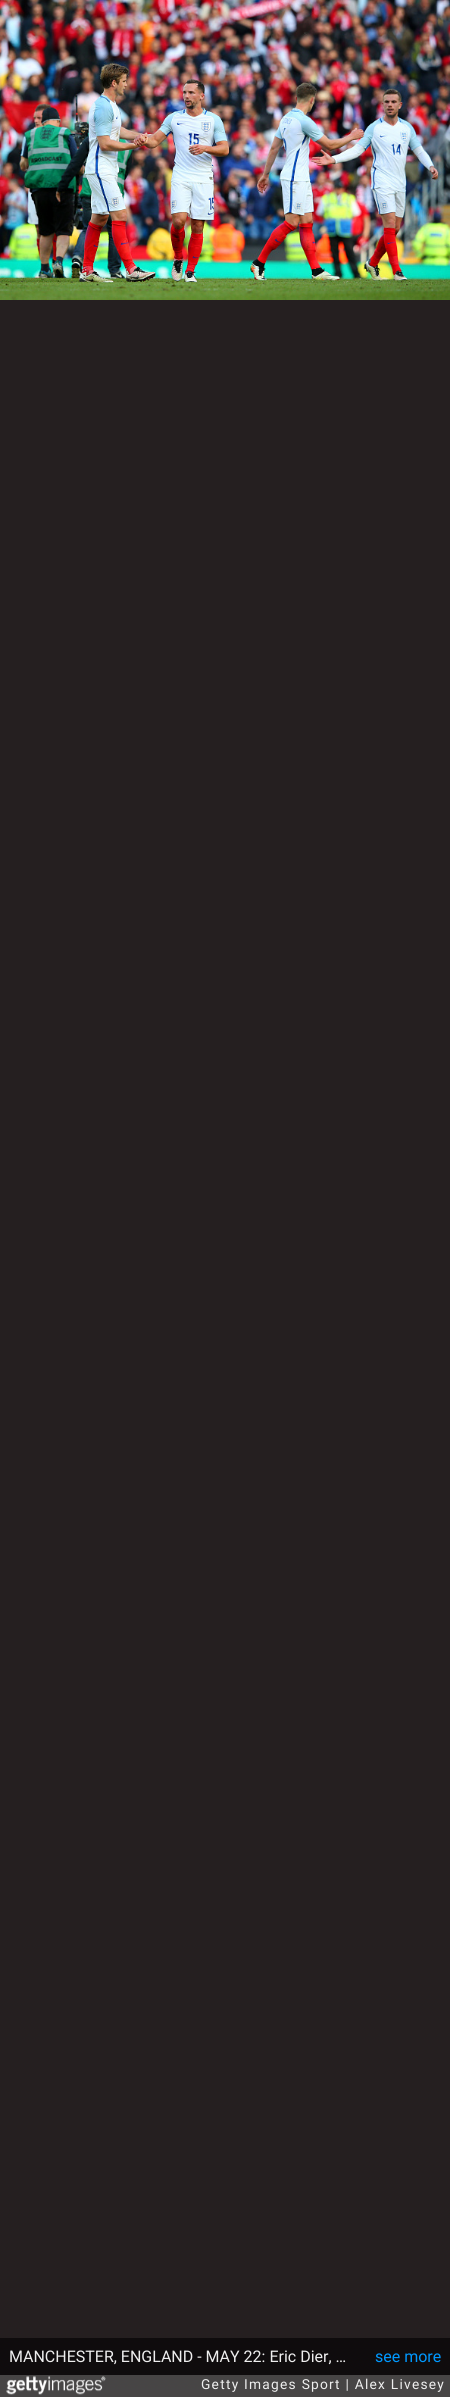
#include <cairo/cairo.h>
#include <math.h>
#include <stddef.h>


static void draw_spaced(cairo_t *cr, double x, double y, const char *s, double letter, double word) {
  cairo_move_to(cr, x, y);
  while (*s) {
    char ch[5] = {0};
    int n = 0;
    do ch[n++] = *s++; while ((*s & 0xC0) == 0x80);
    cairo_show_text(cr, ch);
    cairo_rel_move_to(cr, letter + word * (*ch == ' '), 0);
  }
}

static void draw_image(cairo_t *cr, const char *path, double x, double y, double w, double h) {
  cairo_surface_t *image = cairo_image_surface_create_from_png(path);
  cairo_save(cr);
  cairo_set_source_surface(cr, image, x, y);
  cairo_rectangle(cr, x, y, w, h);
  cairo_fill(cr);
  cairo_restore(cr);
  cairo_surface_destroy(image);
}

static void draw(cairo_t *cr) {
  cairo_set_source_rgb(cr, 37 / 255.0, 31 / 255.0, 32 / 255.0);
  cairo_paint(cr);
  draw_image(cr, "images/1.png", 0, 0, 450, 300);
  cairo_set_source_rgb(cr, 15 / 255.0, 12 / 255.0, 13 / 255.0);
  cairo_rectangle(cr, 0, 2338, 450, 37);
  cairo_fill(cr);
  cairo_set_source_rgb(cr, 71 / 255.0, 69 / 255.0, 69 / 255.0);
  cairo_rectangle(cr, 0, 2375, 450, 22);
  cairo_fill(cr);
  draw_image(cr, "images/2.png", 6, 2376, 100, 19);
  cairo_select_font_face(cr, "Roboto", CAIRO_FONT_SLANT_NORMAL, CAIRO_FONT_WEIGHT_NORMAL);
  cairo_set_font_size(cr, 16);
  cairo_set_source_rgb(cr, 238 / 255.0, 238 / 255.0, 238 / 255.0);
  cairo_move_to(cr, 9, 2362);
  cairo_show_text(cr, "MANCHESTER, ENGLAND - MAY 22: Eric Dier, …");
  cairo_set_source_rgb(cr, 0, 153 / 255.0, 1);
  cairo_move_to(cr, 375, 2362);
  cairo_show_text(cr, "see more");
  cairo_set_font_size(cr, 13.75);
  cairo_set_source_rgb(cr, 238 / 255.0, 238 / 255.0, 238 / 255.0);
  draw_spaced(cr, 201, 2389, "Getty Images Sport | Alex Livesey", 1.25, 0);
}

int main(void) {
  cairo_surface_t *surface = cairo_image_surface_create(CAIRO_FORMAT_RGB24, 450, 2397);
  cairo_t *cr = cairo_create(surface);
  cairo_font_options_t *options = cairo_font_options_create();
  cairo_font_options_set_hint_metrics(options, CAIRO_HINT_METRICS_OFF);
  cairo_font_options_set_hint_style(options, CAIRO_HINT_STYLE_NONE);
  cairo_set_font_options(cr, options);
  cairo_set_miter_limit(cr, 4);
  draw(cr);
  cairo_surface_write_to_png(surface, "out.png");
  cairo_font_options_destroy(options);
  cairo_destroy(cr);
  cairo_surface_destroy(surface);
  return 0;
}
